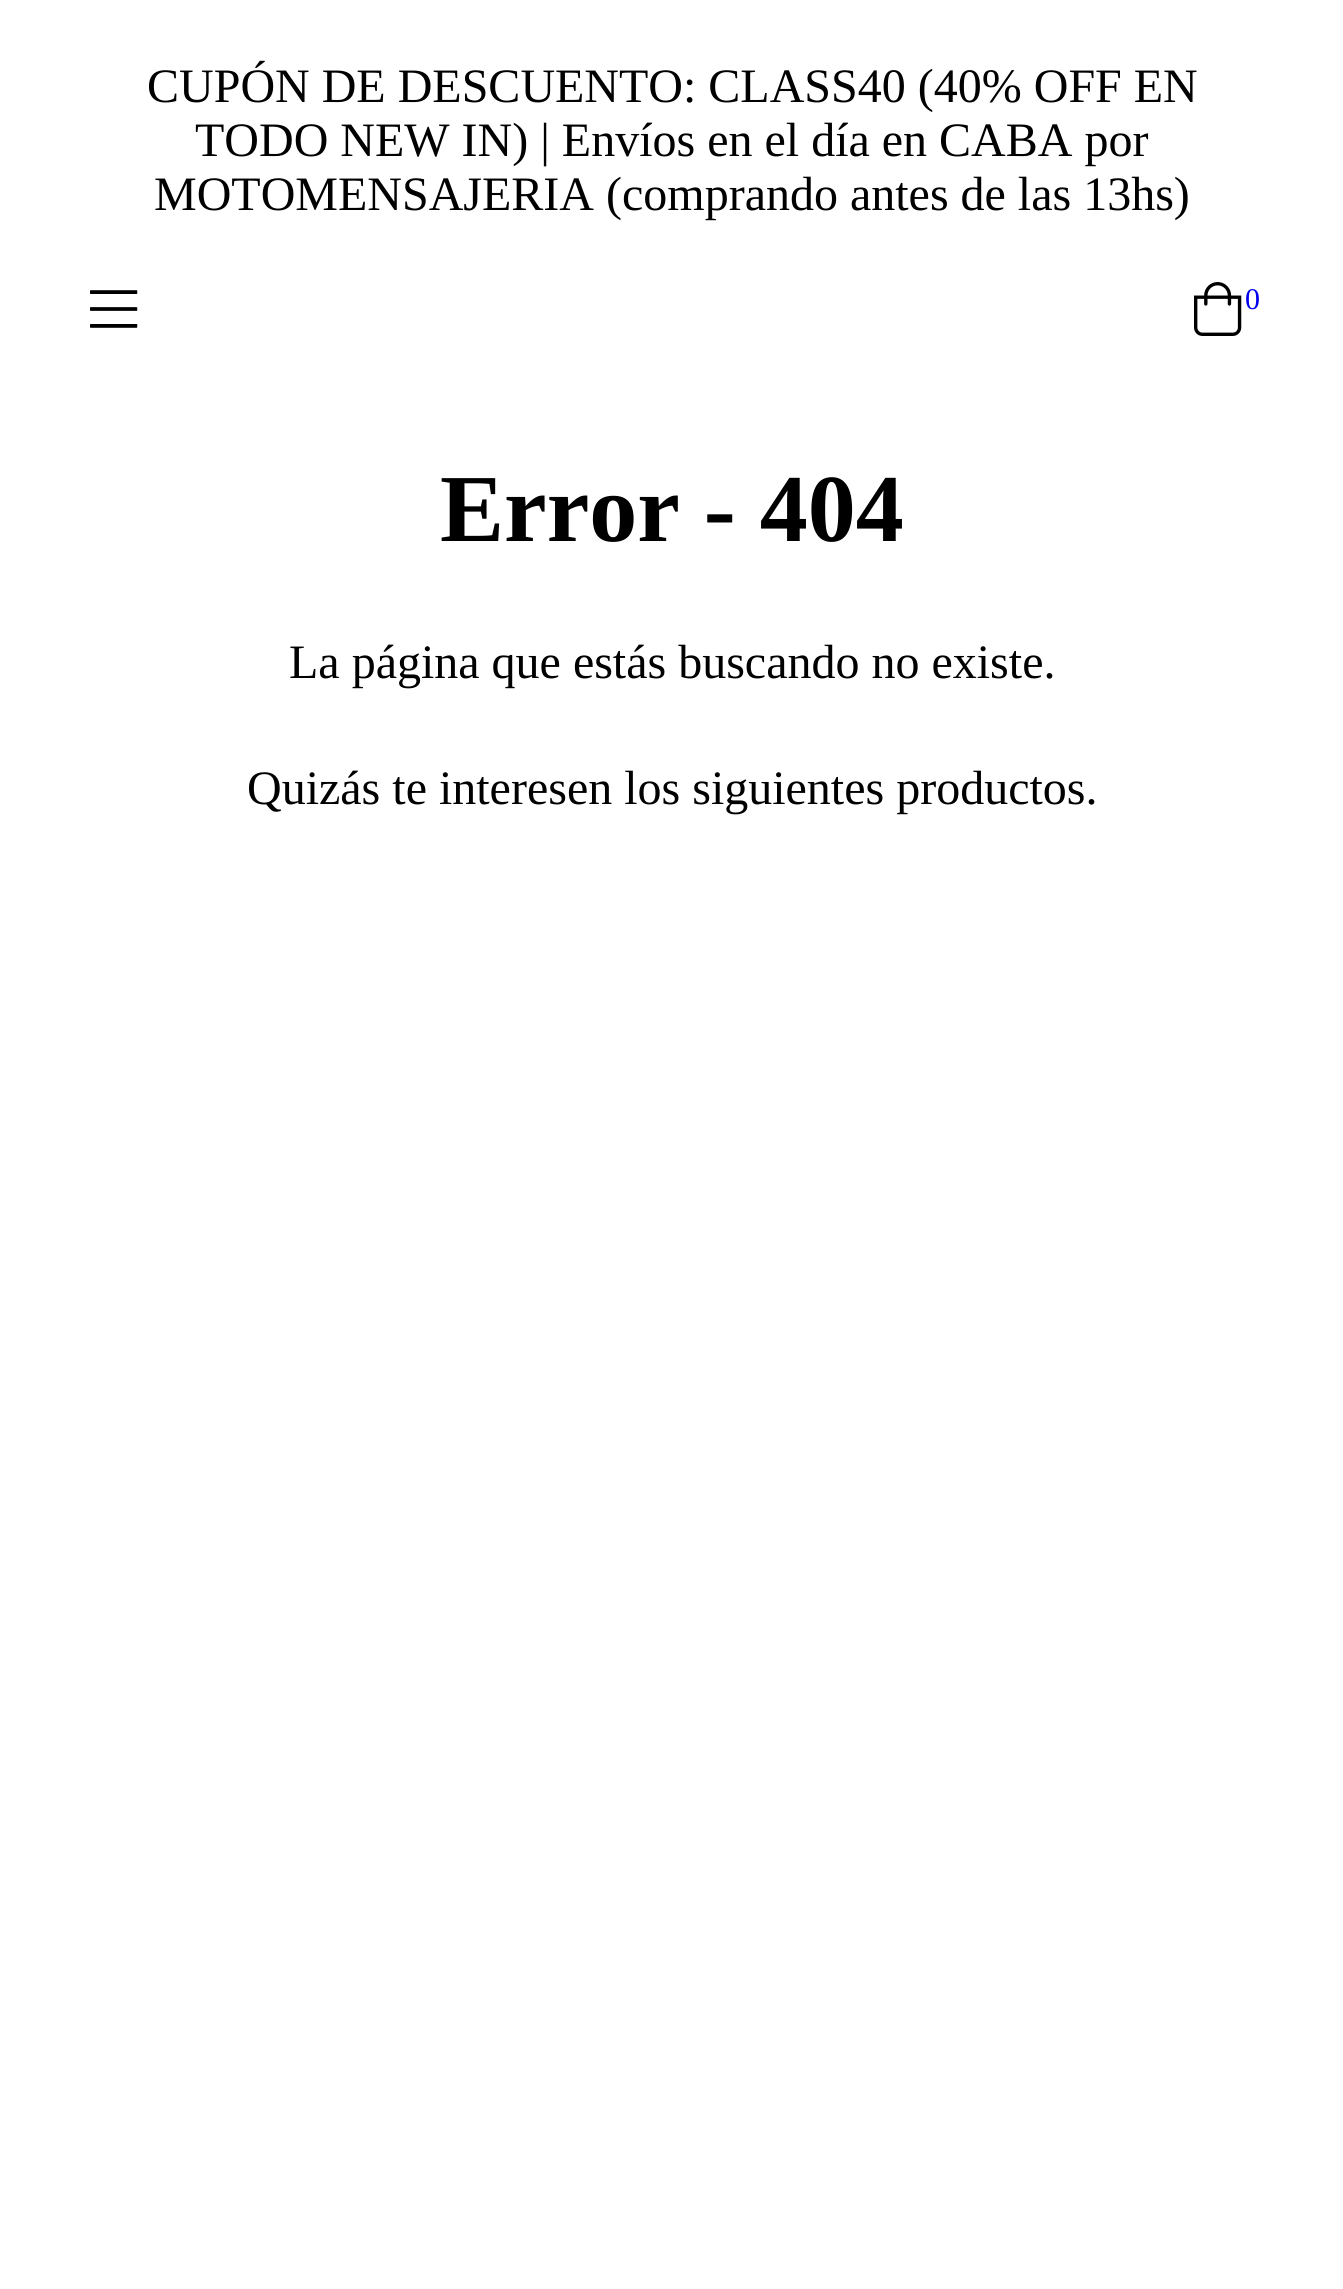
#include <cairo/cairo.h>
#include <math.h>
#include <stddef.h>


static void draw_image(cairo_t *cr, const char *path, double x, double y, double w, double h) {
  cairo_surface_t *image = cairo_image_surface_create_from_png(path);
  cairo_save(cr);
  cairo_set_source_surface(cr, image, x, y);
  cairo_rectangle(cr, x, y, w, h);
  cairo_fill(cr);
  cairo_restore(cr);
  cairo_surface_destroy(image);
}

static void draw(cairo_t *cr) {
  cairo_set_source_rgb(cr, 1, 1, 1);
  cairo_paint(cr);
  draw_image(cr, "images/1.png", 90, 290, 48, 38);
  draw_image(cr, "images/2.png", 1194, 282, 48, 54);
  cairo_select_font_face(cr, "Liberation Serif", CAIRO_FONT_SLANT_NORMAL, CAIRO_FONT_WEIGHT_NORMAL);
  cairo_set_font_size(cr, 48);
  cairo_set_source_rgb(cr, 0, 0, 0);
  cairo_move_to(cr, 147, 102);
  cairo_show_text(cr, "CUPÓN DE DESCUENTO: CLASS40 (40% OFF EN");
  cairo_move_to(cr, 195, 156);
  cairo_show_text(cr, "TODO NEW IN) | Envíos en el día en CABA por");
  cairo_move_to(cr, 154, 210);
  cairo_show_text(cr, "MOTOMENSAJERIA (comprando antes de las 13hs)");
  cairo_set_font_size(cr, 30);
  cairo_set_source_rgb(cr, 0, 0, 238 / 255.0);
  cairo_move_to(cr, 1245, 309);
  cairo_show_text(cr, "0");
  cairo_select_font_face(cr, "Liberation Serif", CAIRO_FONT_SLANT_NORMAL, CAIRO_FONT_WEIGHT_BOLD);
  cairo_set_font_size(cr, 96);
  cairo_set_source_rgb(cr, 0, 0, 0);
  cairo_move_to(cr, 440, 541);
  cairo_show_text(cr, "Error - 404");
  cairo_select_font_face(cr, "Liberation Serif", CAIRO_FONT_SLANT_NORMAL, CAIRO_FONT_WEIGHT_NORMAL);
  cairo_set_font_size(cr, 48);
  cairo_move_to(cr, 289, 678);
  cairo_show_text(cr, "La página que estás buscando no existe.");
  cairo_move_to(cr, 247, 804);
  cairo_show_text(cr, "Quizás te interesen los siguientes productos.");
}

int main(void) {
  cairo_surface_t *surface = cairo_image_surface_create(CAIRO_FORMAT_RGB24, 1343, 2289);
  cairo_t *cr = cairo_create(surface);
  cairo_font_options_t *options = cairo_font_options_create();
  cairo_font_options_set_hint_metrics(options, CAIRO_HINT_METRICS_OFF);
  cairo_font_options_set_hint_style(options, CAIRO_HINT_STYLE_NONE);
  cairo_set_font_options(cr, options);
  cairo_set_miter_limit(cr, 4);
  draw(cr);
  cairo_surface_write_to_png(surface, "out.png");
  cairo_font_options_destroy(options);
  cairo_destroy(cr);
  cairo_surface_destroy(surface);
  return 0;
}
